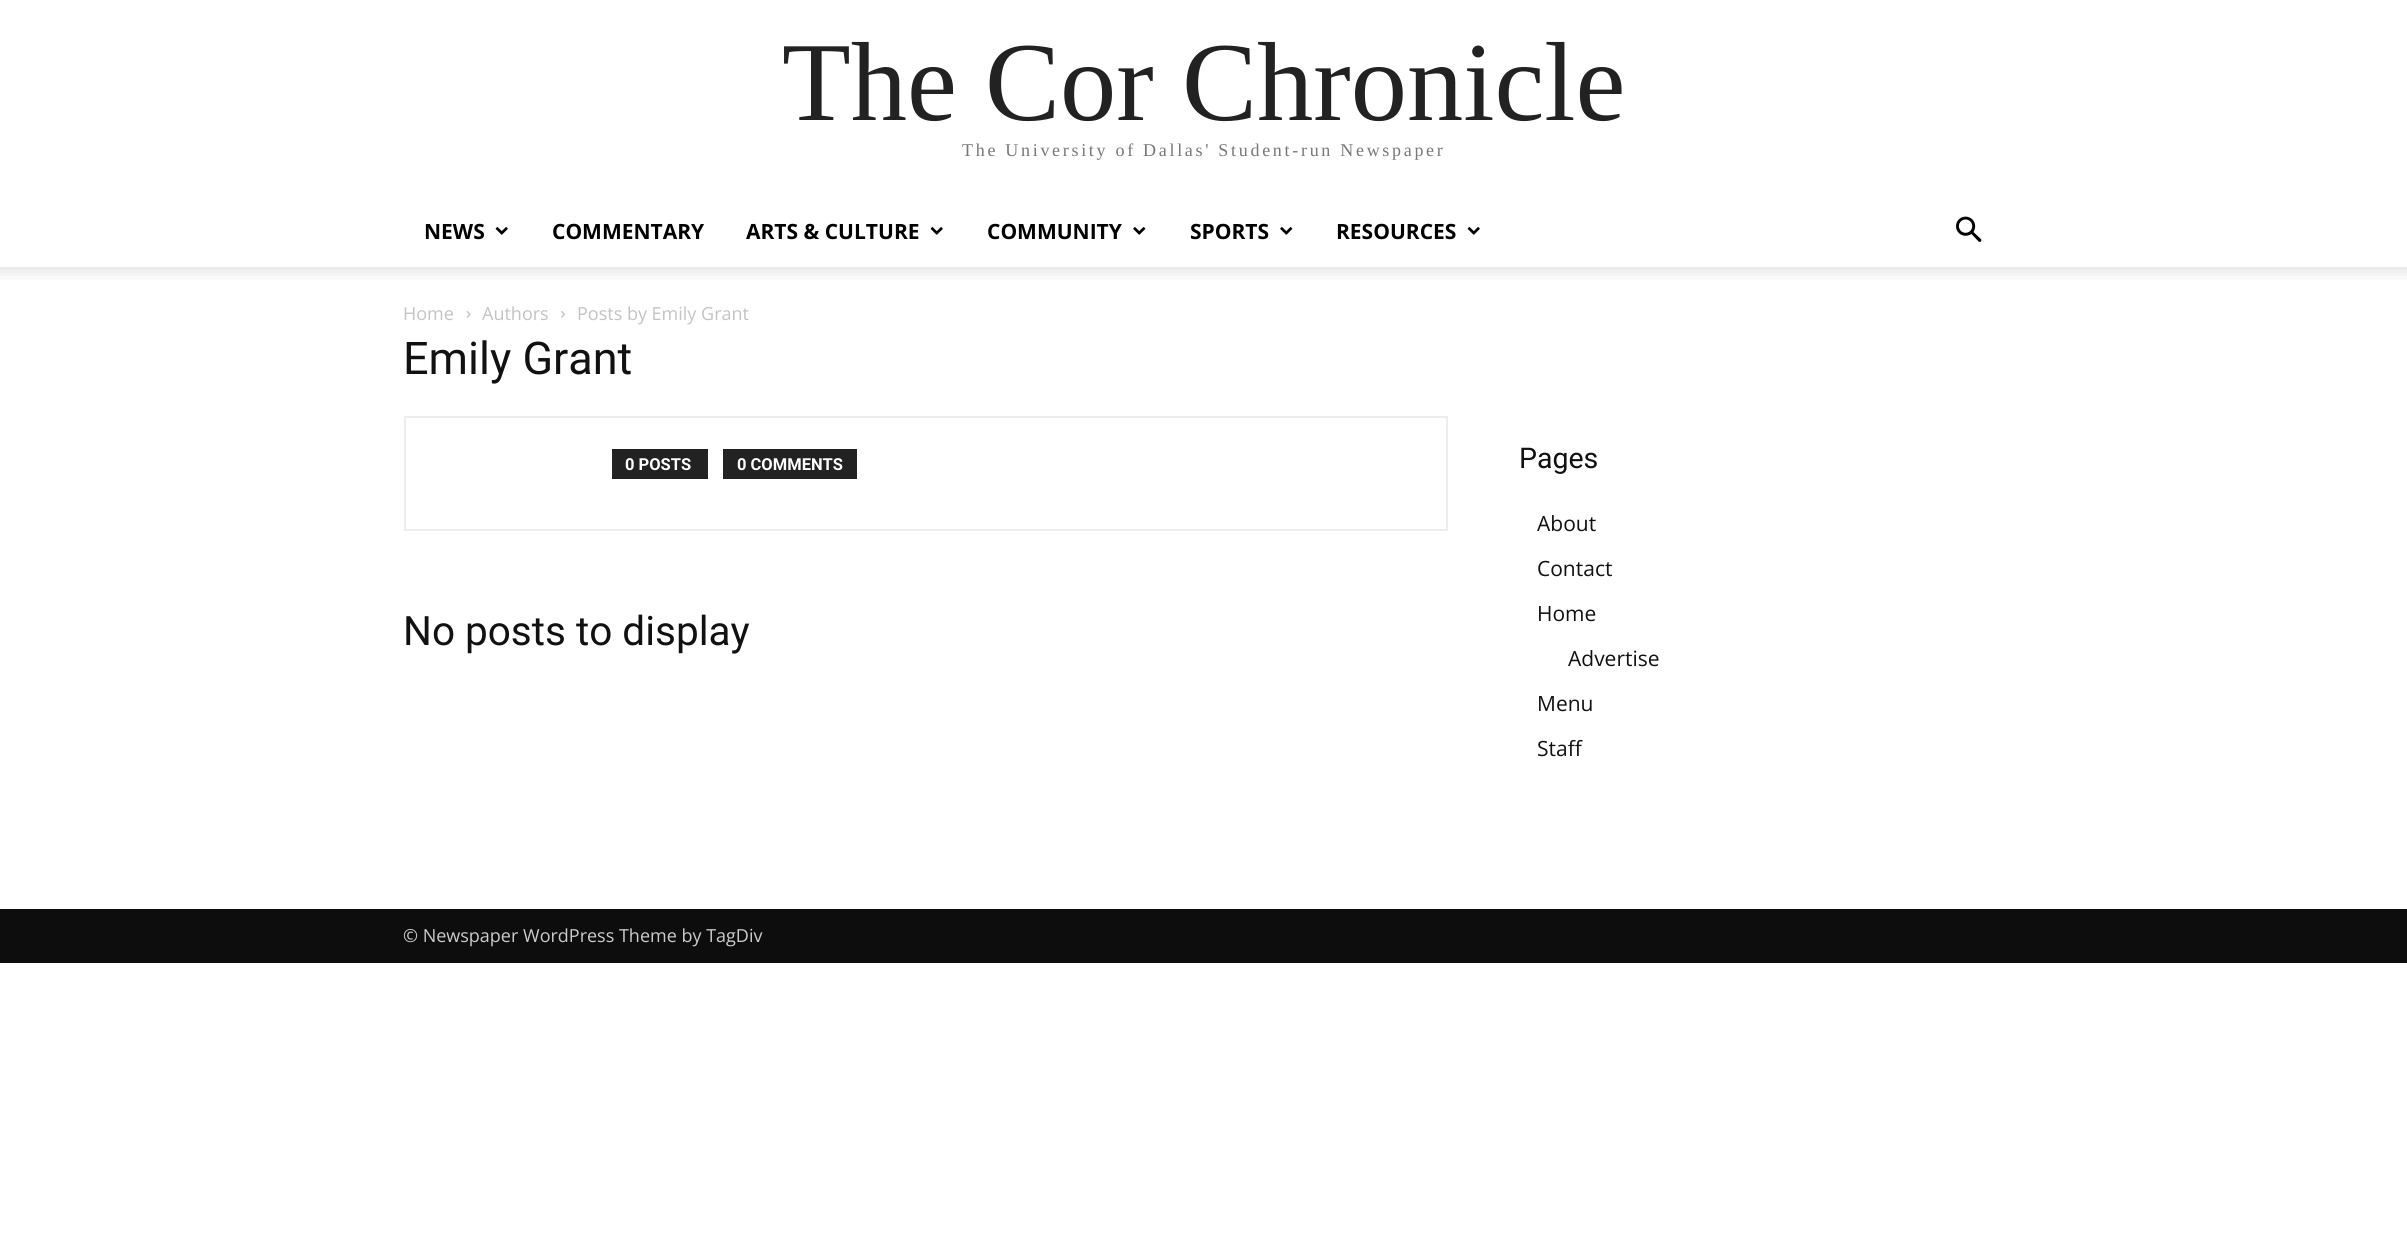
#include <cairo/cairo.h>
#include <math.h>
#include <stddef.h>


static void draw_spaced(cairo_t *cr, double x, double y, const char *s, double letter, double word) {
  cairo_move_to(cr, x, y);
  while (*s) {
    char ch[5] = {0};
    int n = 0;
    do ch[n++] = *s++; while ((*s & 0xC0) == 0x80);
    cairo_show_text(cr, ch);
    cairo_rel_move_to(cr, letter + word * (*ch == ' '), 0);
  }
}

static void draw_image(cairo_t *cr, const char *path, double x, double y, double w, double h) {
  cairo_surface_t *image = cairo_image_surface_create_from_png(path);
  cairo_save(cr);
  cairo_set_source_surface(cr, image, x, y);
  cairo_rectangle(cr, x, y, w, h);
  cairo_fill(cr);
  cairo_restore(cr);
  cairo_surface_destroy(image);
}

static void draw(cairo_t *cr) {
  cairo_set_source_rgb(cr, 1, 1, 1);
  cairo_paint(cr);
  draw_image(cr, "images/1.png", 495, 227, 13, 8);
  draw_image(cr, "images/1.png", 930, 227, 13, 8);
  draw_image(cr, "images/2.png", 1133, 227, 13, 8);
  draw_image(cr, "images/2.png", 1280, 227, 13, 8);
  draw_image(cr, "images/1.png", 1467, 227, 13, 8);
  draw_image(cr, "images/3.png", 1956, 216, 26, 26);
  draw_image(cr, "images/4.png", 0, 267, 2407, 13);
  draw_image(cr, "images/5.png", 466, 311, 5, 7);
  draw_image(cr, "images/6.png", 561, 311, 4, 7);
  cairo_rectangle(cr, 405, 417, 1042, 113);
  cairo_set_source_rgb(cr, 237 / 255.0, 237 / 255.0, 237 / 255.0);
  cairo_stroke(cr);
  cairo_set_source_rgb(cr, 34 / 255.0, 34 / 255.0, 34 / 255.0);
  cairo_rectangle(cr, 612, 449, 96, 30);
  cairo_fill(cr);
  cairo_rectangle(cr, 723, 449, 134, 30);
  cairo_fill(cr);
  cairo_set_source_rgb(cr, 13 / 255.0, 13 / 255.0, 13 / 255.0);
  cairo_rectangle(cr, 0, 909, 2407, 54);
  cairo_fill(cr);
  cairo_select_font_face(cr, "Liberation Serif", CAIRO_FONT_SLANT_NORMAL, CAIRO_FONT_WEIGHT_NORMAL);
  cairo_set_font_size(cr, 112.5);
  cairo_set_source_rgb(cr, 34 / 255.0, 34 / 255.0, 34 / 255.0);
  cairo_move_to(cr, 782, 120);
  cairo_show_text(cr, "The Cor Chronicle");
  cairo_set_font_size(cr, 18);
  cairo_set_source_rgb(cr, 119 / 255.0, 119 / 255.0, 119 / 255.0);
  draw_spaced(cr, 962, 156, "The University of Dallas' Student-run Newspaper", 2.7, 0);
  cairo_select_font_face(cr, "Open Sans", CAIRO_FONT_SLANT_NORMAL, CAIRO_FONT_WEIGHT_BOLD);
  cairo_set_font_size(cr, 21);
  cairo_set_source_rgb(cr, 0, 0, 0);
  cairo_move_to(cr, 424, 239);
  cairo_show_text(cr, "NEWS");
  cairo_move_to(cr, 552, 239);
  cairo_show_text(cr, "COMMENTARY");
  cairo_move_to(cr, 746, 239);
  cairo_show_text(cr, "ARTS & CULTURE");
  cairo_move_to(cr, 987, 239);
  cairo_show_text(cr, "COMMUNITY");
  cairo_move_to(cr, 1190, 239);
  cairo_show_text(cr, "SPORTS");
  cairo_move_to(cr, 1336, 239);
  cairo_show_text(cr, "RESOURCES");
  cairo_select_font_face(cr, "Open Sans", CAIRO_FONT_SLANT_NORMAL, CAIRO_FONT_WEIGHT_NORMAL);
  cairo_set_font_size(cr, 18);
  cairo_set_source_rgb(cr, 195 / 255.0, 195 / 255.0, 195 / 255.0);
  cairo_move_to(cr, 403, 320);
  cairo_show_text(cr, "Home");
  cairo_move_to(cr, 482, 320);
  cairo_show_text(cr, "Authors");
  cairo_move_to(cr, 577, 320);
  cairo_show_text(cr, "Posts by Emily Grant");
  cairo_select_font_face(cr, "Roboto", CAIRO_FONT_SLANT_NORMAL, CAIRO_FONT_WEIGHT_NORMAL);
  cairo_set_font_size(cr, 45);
  cairo_set_source_rgb(cr, 17 / 255.0, 17 / 255.0, 17 / 255.0);
  cairo_move_to(cr, 403, 374);
  cairo_show_text(cr, "Emily Grant");
  cairo_select_font_face(cr, "Roboto", CAIRO_FONT_SLANT_NORMAL, CAIRO_FONT_WEIGHT_BOLD);
  cairo_set_font_size(cr, 16.5);
  cairo_set_source_rgb(cr, 1, 1, 1);
  cairo_move_to(cr, 625, 470);
  cairo_show_text(cr, "0 POSTS");
  cairo_move_to(cr, 737, 470);
  cairo_show_text(cr, "0 COMMENTS");
  cairo_select_font_face(cr, "Roboto", CAIRO_FONT_SLANT_NORMAL, CAIRO_FONT_WEIGHT_NORMAL);
  cairo_set_font_size(cr, 40.5);
  cairo_set_source_rgb(cr, 17 / 255.0, 17 / 255.0, 17 / 255.0);
  cairo_move_to(cr, 403, 645);
  cairo_show_text(cr, "No posts to display");
  cairo_set_font_size(cr, 28.5);
  cairo_move_to(cr, 1519, 468);
  cairo_show_text(cr, "Pages");
  cairo_select_font_face(cr, "Open Sans", CAIRO_FONT_SLANT_NORMAL, CAIRO_FONT_WEIGHT_NORMAL);
  cairo_set_font_size(cr, 21);
  cairo_move_to(cr, 1537, 531);
  cairo_show_text(cr, "About");
  cairo_move_to(cr, 1537, 576);
  cairo_show_text(cr, "Contact");
  cairo_move_to(cr, 1537, 621);
  cairo_show_text(cr, "Home");
  cairo_move_to(cr, 1568, 666);
  cairo_show_text(cr, "Advertise");
  cairo_move_to(cr, 1537, 711);
  cairo_show_text(cr, "Menu");
  cairo_move_to(cr, 1537, 756);
  cairo_show_text(cr, "Staff");
  cairo_set_font_size(cr, 18);
  cairo_set_source_rgb(cr, 204 / 255.0, 204 / 255.0, 204 / 255.0);
  cairo_move_to(cr, 403, 942);
  cairo_show_text(cr, "© Newspaper WordPress Theme by TagDiv");
}

int main(void) {
  cairo_surface_t *surface = cairo_image_surface_create(CAIRO_FORMAT_RGB24, 2407, 1254);
  cairo_t *cr = cairo_create(surface);
  cairo_font_options_t *options = cairo_font_options_create();
  cairo_font_options_set_hint_metrics(options, CAIRO_HINT_METRICS_OFF);
  cairo_font_options_set_hint_style(options, CAIRO_HINT_STYLE_NONE);
  cairo_set_font_options(cr, options);
  cairo_set_miter_limit(cr, 4);
  draw(cr);
  cairo_surface_write_to_png(surface, "out.png");
  cairo_font_options_destroy(options);
  cairo_destroy(cr);
  cairo_surface_destroy(surface);
  return 0;
}
